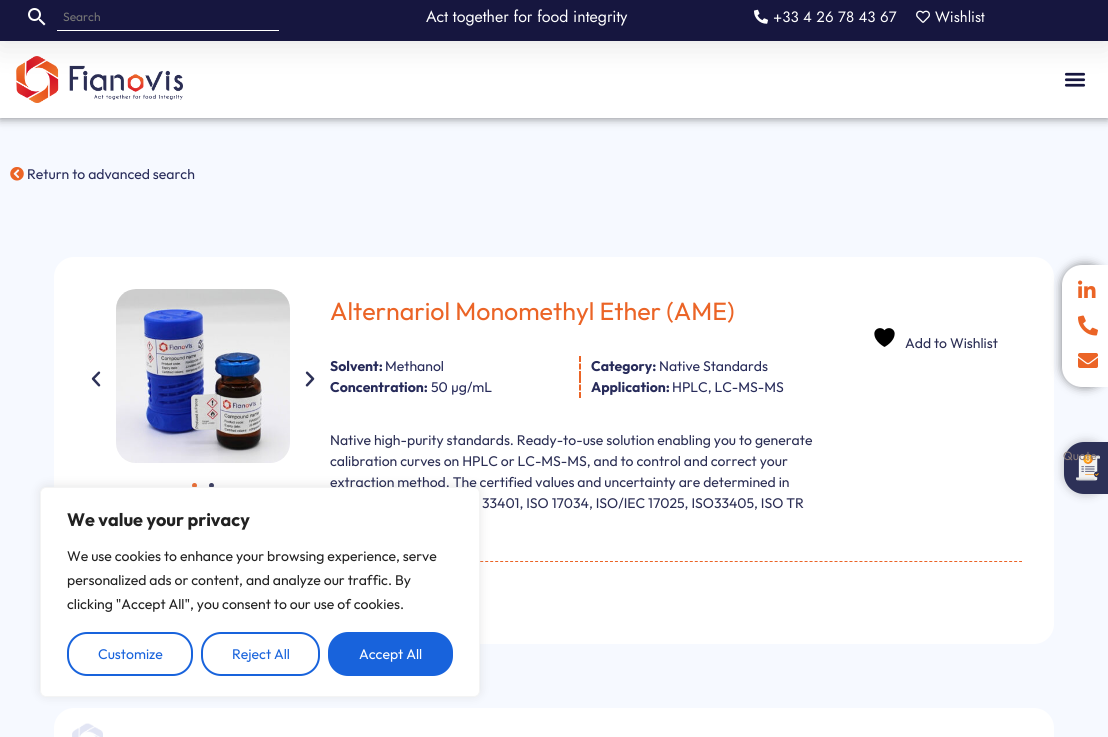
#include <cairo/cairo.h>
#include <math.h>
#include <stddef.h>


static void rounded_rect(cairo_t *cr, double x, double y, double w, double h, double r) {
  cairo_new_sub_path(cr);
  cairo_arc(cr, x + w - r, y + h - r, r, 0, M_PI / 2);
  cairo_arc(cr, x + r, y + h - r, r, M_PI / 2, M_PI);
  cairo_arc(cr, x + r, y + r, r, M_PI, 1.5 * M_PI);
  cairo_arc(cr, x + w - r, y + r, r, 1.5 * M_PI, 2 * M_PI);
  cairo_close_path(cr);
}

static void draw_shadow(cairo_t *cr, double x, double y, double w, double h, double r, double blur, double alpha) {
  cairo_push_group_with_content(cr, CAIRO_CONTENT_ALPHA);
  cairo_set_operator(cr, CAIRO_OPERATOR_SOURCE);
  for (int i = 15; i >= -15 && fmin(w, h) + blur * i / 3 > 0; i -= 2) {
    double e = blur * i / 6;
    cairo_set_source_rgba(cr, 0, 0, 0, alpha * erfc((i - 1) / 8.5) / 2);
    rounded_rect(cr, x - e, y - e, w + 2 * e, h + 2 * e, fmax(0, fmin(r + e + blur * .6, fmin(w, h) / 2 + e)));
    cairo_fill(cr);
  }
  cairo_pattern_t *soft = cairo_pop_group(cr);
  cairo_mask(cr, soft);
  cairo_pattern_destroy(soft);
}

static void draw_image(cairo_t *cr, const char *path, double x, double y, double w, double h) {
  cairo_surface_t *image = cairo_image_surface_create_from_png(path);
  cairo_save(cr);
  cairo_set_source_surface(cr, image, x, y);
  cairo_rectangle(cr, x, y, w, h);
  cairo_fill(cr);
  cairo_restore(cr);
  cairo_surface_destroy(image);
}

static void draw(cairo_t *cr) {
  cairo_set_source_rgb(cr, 246 / 255.0, 249 / 255.0, 1);
  cairo_paint(cr);
  cairo_set_source_rgb(cr, 0, 0, 0);
  draw_shadow(cr, 0, 41, 1108, 77, 0, 5, 0.5);
  cairo_set_source_rgb(cr, 1, 1, 1);
  cairo_rectangle(cr, 0, 41, 1108, 77);
  cairo_fill(cr);
  draw_image(cr, "images/8.png", 16, 56, 167, 47);
  draw_image(cr, "images/9.png", 1064, 72, 22, 15);
  cairo_set_source_rgb(cr, 0, 0, 0);
  draw_shadow(cr, 0, 5, 1108, 41, 0, 15, 0.1);
  cairo_set_source_rgb(cr, 22 / 255.0, 22 / 255.0, 63 / 255.0);
  cairo_rectangle(cr, 0, 0, 1108, 41);
  cairo_fill(cr);
  draw_image(cr, "images/1.png", 28, 8, 18, 18);
  cairo_set_source_rgb(cr, 1, 1, 1);
  cairo_rectangle(cr, 57, 30, 222, 1);
  cairo_fill(cr);
  draw_image(cr, "images/2.png", 754, 9, 14, 15);
  draw_image(cr, "images/3.png", 916, 10, 14, 13);
  rounded_rect(cr, 54, 257, 1000, 387, 20);
  cairo_fill(cr);
  cairo_set_source_rgb(cr, 0, 0, 0);
  draw_shadow(cr, 1062, 265, 46, 122, 20, 5, 0.5);
  cairo_set_source_rgb(cr, 1, 1, 1);
  cairo_new_path(cr);
  cairo_move_to(cr, 1082, 265);
  cairo_line_to(cr, 1108, 265);
  cairo_line_to(cr, 1108, 387);
  cairo_line_to(cr, 1082, 387);
  cairo_curve_to(cr, 1071, 387, 1062, 378, 1062, 367);
  cairo_line_to(cr, 1062, 285);
  cairo_curve_to(cr, 1062, 274, 1071, 265, 1082, 265);
  cairo_close_path(cr);
  cairo_fill(cr);
  draw_image(cr, "images/4.png", 1078, 280, 18, 18);
  draw_image(cr, "images/5.png", 1078, 315, 20, 21);
  draw_image(cr, "images/6.png", 1078, 353, 20, 15);
  cairo_set_source_rgb(cr, 0, 0, 0);
  draw_shadow(cr, 1064, 442, 44, 52, 20, 5, 0.25);
  cairo_set_source_rgb(cr, 45 / 255.0, 49 / 255.0, 87 / 255.0);
  cairo_new_path(cr);
  cairo_move_to(cr, 1084, 442);
  cairo_line_to(cr, 1108, 442);
  cairo_line_to(cr, 1108, 494);
  cairo_line_to(cr, 1084, 494);
  cairo_curve_to(cr, 1073, 494, 1064, 485, 1064, 474);
  cairo_line_to(cr, 1064, 462);
  cairo_curve_to(cr, 1064, 451, 1073, 442, 1084, 442);
  cairo_close_path(cr);
  cairo_fill(cr);
  draw_image(cr, "images/7.png", 1076, 454, 24, 27);
  draw_image(cr, "images/10.png", 10, 167, 14, 14);
  cairo_new_path(cr);
  cairo_move_to(cr, 86, 561.5);
  cairo_line_to(cr, 1022, 561.5);
  cairo_set_source_rgb(cr, 235 / 255.0, 100 / 255.0, 38 / 255.0);
  cairo_set_line_width(cr, 1);
  cairo_set_dash(cr, (double[]){3, 1.99}, 2, 0);
  cairo_stroke(cr);
  draw_image(cr, "images/11.png", 91, 371, 10, 16);
  draw_image(cr, "images/12.png", 116, 289, 174, 174);
  draw_image(cr, "images/13.png", 305, 371, 10, 16);
  cairo_arc(cr, 194.5, 485.5, 2.5, 0, 2 * M_PI);
  cairo_fill(cr);
  cairo_set_source_rgb(cr, 45 / 255.0, 49 / 255.0, 87 / 255.0);
  cairo_arc(cr, 211.5, 485.5, 2.5, 0, 2 * M_PI);
  cairo_fill(cr);
  cairo_new_path(cr);
  cairo_move_to(cr, 580, 356);
  cairo_line_to(cr, 580, 362);
  cairo_move_to(cr, 580, 363.5);
  cairo_line_to(cr, 580, 369.5);
  cairo_move_to(cr, 580, 371);
  cairo_line_to(cr, 580, 377);
  cairo_set_source_rgb(cr, 235 / 255.0, 100 / 255.0, 38 / 255.0);
  cairo_set_line_width(cr, 2);
  cairo_set_dash(cr, NULL, 0, 0);
  cairo_stroke(cr);
  cairo_new_path(cr);
  cairo_move_to(cr, 580, 377);
  cairo_line_to(cr, 580, 383);
  cairo_move_to(cr, 580, 384.5);
  cairo_line_to(cr, 580, 390.5);
  cairo_move_to(cr, 580, 392);
  cairo_line_to(cr, 580, 398);
  cairo_stroke(cr);
  draw_image(cr, "images/14.png", 874, 328, 21, 19);
  cairo_set_source_rgb(cr, 1, 1, 1);
  rounded_rect(cr, 54, 708, 1000, 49, 20);
  cairo_fill(cr);
  draw_image(cr, "images/15.png", 72, 723, 31, 14);
  cairo_set_source_rgb(cr, 172 / 255.0, 171 / 255.0, 171 / 255.0);
  draw_shadow(cr, 40, 486, 440, 210, 6, 5, 0.3);
  cairo_select_font_face(cr, "Outfit", CAIRO_FONT_SLANT_NORMAL, CAIRO_FONT_WEIGHT_NORMAL);
  cairo_set_font_size(cr, 12);
  cairo_set_source_rgb(cr, 117 / 255.0, 117 / 255.0, 117 / 255.0);
  cairo_move_to(cr, 63, 21);
  cairo_show_text(cr, "Search");
  cairo_select_font_face(cr, "Jost", CAIRO_FONT_SLANT_NORMAL, CAIRO_FONT_WEIGHT_NORMAL);
  cairo_set_font_size(cr, 16);
  cairo_set_source_rgb(cr, 1, 1, 1);
  cairo_move_to(cr, 426, 22);
  cairo_show_text(cr, "Act together for food integrity");
  cairo_set_font_size(cr, 15);
  cairo_move_to(cr, 773, 22);
  cairo_show_text(cr, "+33 4 26 78 43 67");
  cairo_move_to(cr, 935, 22);
  cairo_show_text(cr, "Wishlist");
  cairo_select_font_face(cr, "Outfit", CAIRO_FONT_SLANT_NORMAL, CAIRO_FONT_WEIGHT_NORMAL);
  cairo_set_font_size(cr, 12);
  cairo_set_source_rgb(cr, 136 / 255.0, 123 / 255.0, 121 / 255.0);
  cairo_move_to(cr, 1063, 460);
  cairo_show_text(cr, "Quote");
  cairo_set_font_size(cr, 14);
  cairo_set_source_rgb(cr, 39 / 255.0, 43 / 255.0, 90 / 255.0);
  cairo_move_to(cr, 27, 179);
  cairo_show_text(cr, "Return to advanced search");
  cairo_set_font_size(cr, 25);
  cairo_set_source_rgb(cr, 235 / 255.0, 100 / 255.0, 38 / 255.0);
  cairo_move_to(cr, 330, 320);
  cairo_show_text(cr, "Alternariol Monomethyl Ether (AME)");
  cairo_select_font_face(cr, "Outfit", CAIRO_FONT_SLANT_NORMAL, CAIRO_FONT_WEIGHT_BOLD);
  cairo_set_font_size(cr, 14);
  cairo_set_source_rgb(cr, 39 / 255.0, 43 / 255.0, 90 / 255.0);
  cairo_move_to(cr, 330, 371);
  cairo_show_text(cr, "Solvent:");
  cairo_select_font_face(cr, "Outfit", CAIRO_FONT_SLANT_NORMAL, CAIRO_FONT_WEIGHT_NORMAL);
  cairo_move_to(cr, 385, 371);
  cairo_show_text(cr, "Methanol");
  cairo_select_font_face(cr, "Outfit", CAIRO_FONT_SLANT_NORMAL, CAIRO_FONT_WEIGHT_BOLD);
  cairo_move_to(cr, 591, 371);
  cairo_show_text(cr, "Category:");
  cairo_select_font_face(cr, "Outfit", CAIRO_FONT_SLANT_NORMAL, CAIRO_FONT_WEIGHT_NORMAL);
  cairo_move_to(cr, 659, 371);
  cairo_show_text(cr, "Native Standards");
  cairo_select_font_face(cr, "Outfit", CAIRO_FONT_SLANT_NORMAL, CAIRO_FONT_WEIGHT_BOLD);
  cairo_move_to(cr, 330, 392);
  cairo_show_text(cr, "Concentration:");
  cairo_select_font_face(cr, "Outfit", CAIRO_FONT_SLANT_NORMAL, CAIRO_FONT_WEIGHT_NORMAL);
  cairo_move_to(cr, 431, 392);
  cairo_show_text(cr, "50 µg/mL");
  cairo_select_font_face(cr, "Outfit", CAIRO_FONT_SLANT_NORMAL, CAIRO_FONT_WEIGHT_BOLD);
  cairo_move_to(cr, 591, 392);
  cairo_show_text(cr, "Application:");
  cairo_select_font_face(cr, "Outfit", CAIRO_FONT_SLANT_NORMAL, CAIRO_FONT_WEIGHT_NORMAL);
  cairo_move_to(cr, 672, 392);
  cairo_show_text(cr, "HPLC, LC-MS-MS");
  cairo_set_source_rgb(cr, 43 / 255.0, 46 / 255.0, 84 / 255.0);
  cairo_move_to(cr, 330, 445);
  cairo_show_text(cr, "Native high-purity standards. Ready-to-use solution enabling you to generate");
  cairo_move_to(cr, 330, 466);
  cairo_show_text(cr, "calibration curves on HPLC or LC-MS-MS, and to control and correct your");
  cairo_move_to(cr, 330, 487);
  cairo_show_text(cr, "extraction method. The certified values and uncertainty are determined in");
  cairo_move_to(cr, 482, 508);
  cairo_show_text(cr, "33401, ISO 17034, ISO/IEC 17025, ISO33405, ISO TR");
  cairo_move_to(cr, 905, 348);
  cairo_show_text(cr, "Add to Wishlist");
  cairo_set_source_rgb(cr, 1, 1, 1);
  rounded_rect(cr, 40.5, 487.5, 439, 209, 5.5);
  cairo_fill_preserve(cr);
  cairo_set_source_rgb(cr, 244 / 255.0, 244 / 255.0, 244 / 255.0);
  cairo_set_line_width(cr, 1);
  cairo_stroke(cr);
  cairo_select_font_face(cr, "Outfit", CAIRO_FONT_SLANT_NORMAL, CAIRO_FONT_WEIGHT_BOLD);
  cairo_set_font_size(cr, 18);
  cairo_set_source_rgb(cr, 33 / 255.0, 33 / 255.0, 33 / 255.0);
  cairo_move_to(cr, 67, 526);
  cairo_show_text(cr, "We value your privacy");
  cairo_select_font_face(cr, "Outfit", CAIRO_FONT_SLANT_NORMAL, CAIRO_FONT_WEIGHT_NORMAL);
  cairo_set_font_size(cr, 14);
  cairo_move_to(cr, 67, 561);
  cairo_show_text(cr, "We use cookies to enhance your browsing experience, serve");
  cairo_move_to(cr, 67, 585);
  cairo_show_text(cr, "personalized ads or content, and analyze our traffic. By");
  cairo_move_to(cr, 67, 609);
  cairo_show_text(cr, "clicking \"Accept All\", you consent to our use of cookies.");
  rounded_rect(cr, 68, 633, 124, 42, 19);
  cairo_set_source_rgb(cr, 24 / 255.0, 99 / 255.0, 220 / 255.0);
  cairo_set_line_width(cr, 2);
  cairo_stroke(cr);
  cairo_move_to(cr, 98, 659);
  cairo_show_text(cr, "Customize");
  rounded_rect(cr, 202, 633, 117, 42, 19);
  cairo_stroke(cr);
  cairo_move_to(cr, 232, 659);
  cairo_show_text(cr, "Reject All");
  rounded_rect(cr, 329, 633, 123, 42, 19);
  cairo_fill_preserve(cr);
  cairo_stroke(cr);
  cairo_set_source_rgb(cr, 1, 1, 1);
  cairo_move_to(cr, 359, 659);
  cairo_show_text(cr, "Accept All");
}

int main(void) {
  cairo_surface_t *surface = cairo_image_surface_create(CAIRO_FORMAT_RGB24, 1108, 737);
  cairo_t *cr = cairo_create(surface);
  cairo_font_options_t *options = cairo_font_options_create();
  cairo_font_options_set_hint_metrics(options, CAIRO_HINT_METRICS_OFF);
  cairo_font_options_set_hint_style(options, CAIRO_HINT_STYLE_NONE);
  cairo_set_font_options(cr, options);
  cairo_set_miter_limit(cr, 4);
  draw(cr);
  cairo_surface_write_to_png(surface, "out.png");
  cairo_font_options_destroy(options);
  cairo_destroy(cr);
  cairo_surface_destroy(surface);
  return 0;
}
